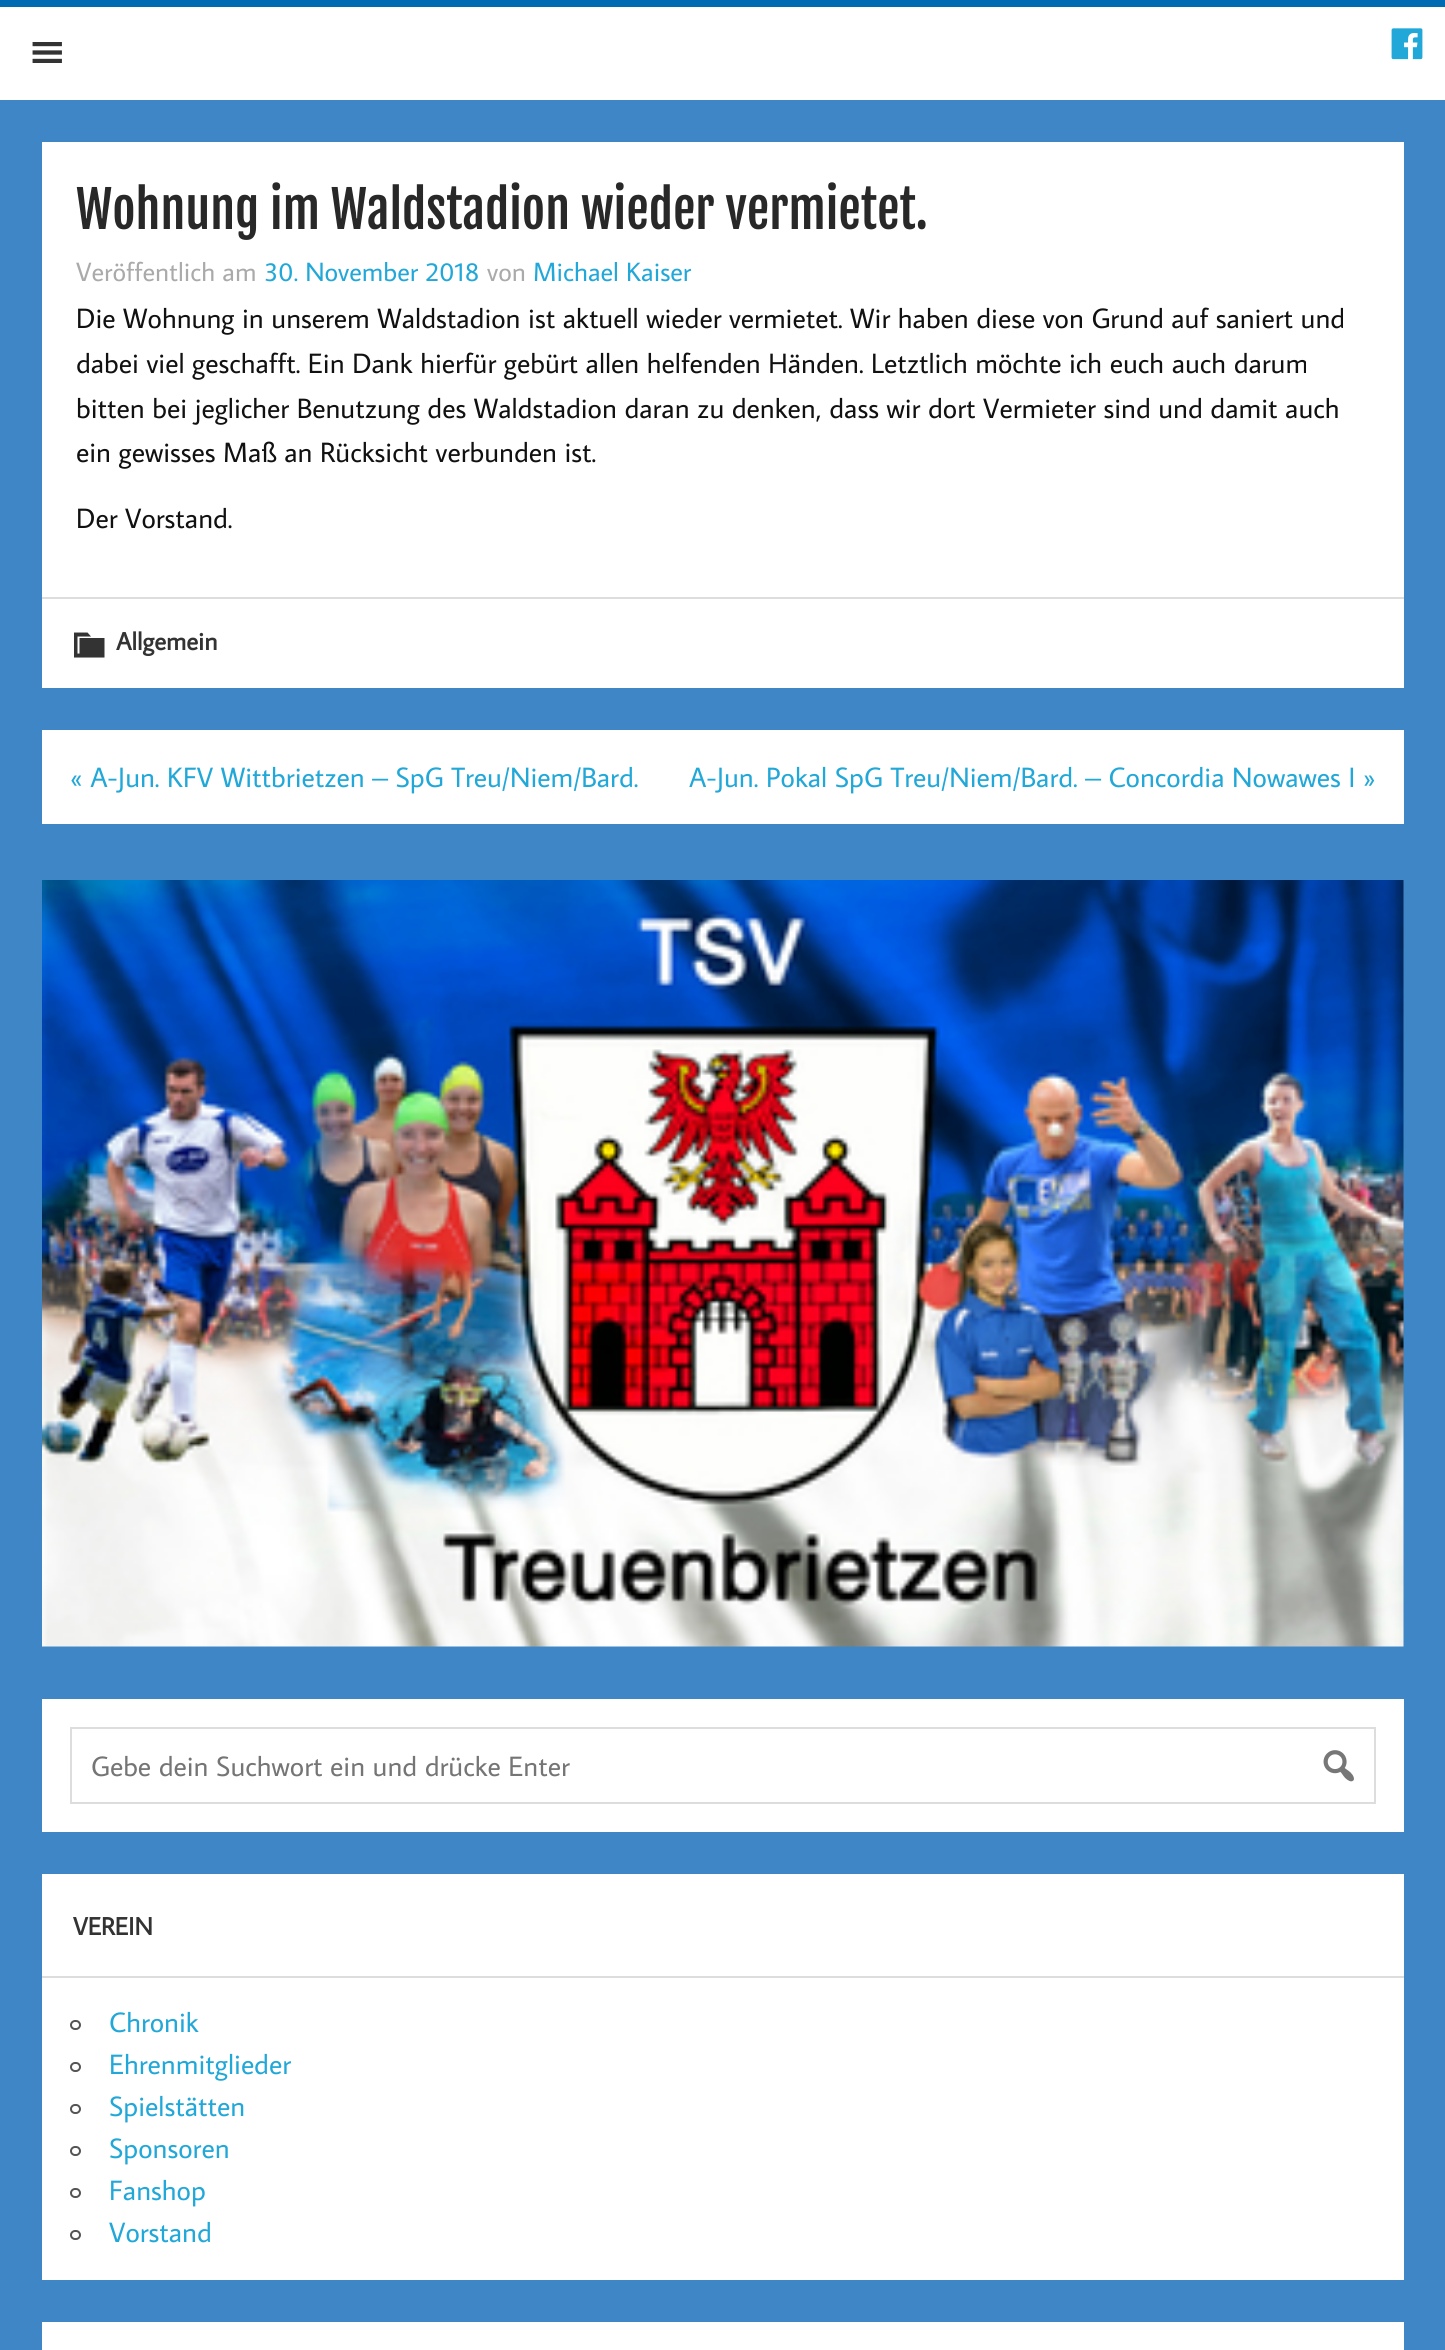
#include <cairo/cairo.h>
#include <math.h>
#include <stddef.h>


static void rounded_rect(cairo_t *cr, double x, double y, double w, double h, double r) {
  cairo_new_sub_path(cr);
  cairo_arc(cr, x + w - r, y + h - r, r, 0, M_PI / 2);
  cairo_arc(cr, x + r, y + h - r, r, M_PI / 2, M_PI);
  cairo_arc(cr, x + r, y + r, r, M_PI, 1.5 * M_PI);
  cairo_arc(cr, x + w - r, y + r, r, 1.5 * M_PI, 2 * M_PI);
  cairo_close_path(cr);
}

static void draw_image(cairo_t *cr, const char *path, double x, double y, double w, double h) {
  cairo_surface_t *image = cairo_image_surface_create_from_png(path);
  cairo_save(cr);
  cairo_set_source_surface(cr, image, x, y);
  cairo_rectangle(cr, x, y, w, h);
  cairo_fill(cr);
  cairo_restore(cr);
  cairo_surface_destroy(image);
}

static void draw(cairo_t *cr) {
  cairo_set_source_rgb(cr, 62 / 255.0, 134 / 255.0, 198 / 255.0);
  cairo_paint(cr);
  cairo_set_source_rgb(cr, 0, 106 / 255.0, 178 / 255.0);
  cairo_rectangle(cr, 0, 0, 1445, 7);
  cairo_fill(cr);
  cairo_set_source_rgb(cr, 1, 1, 1);
  cairo_rectangle(cr, 0, 7, 1445, 93);
  cairo_fill(cr);
  draw_image(cr, "images/1.png", 32, 42, 30, 21);
  draw_image(cr, "images/2.png", 1391, 28, 32, 32);
  cairo_rectangle(cr, 42, 142, 1362, 546);
  cairo_fill(cr);
  cairo_set_source_rgb(cr, 221 / 255.0, 221 / 255.0, 221 / 255.0);
  cairo_rectangle(cr, 42, 597, 1362, 2);
  cairo_fill(cr);
  cairo_set_source_rgb(cr, 51 / 255.0, 51 / 255.0, 51 / 255.0);
  cairo_new_path(cr);
  cairo_move_to(cr, 79.5, 638);
  cairo_line_to(cr, 104.5, 638);
  cairo_line_to(cr, 104.5, 657.5);
  cairo_line_to(cr, 74, 657.5);
  cairo_line_to(cr, 74, 632.5);
  cairo_line_to(cr, 87.5, 632.5);
  cairo_line_to(cr, 91, 636.5);
  cairo_line_to(cr, 77.5, 636.5);
  cairo_line_to(cr, 77.5, 653.5);
  cairo_line_to(cr, 79.5, 653.5);
  cairo_close_path(cr);
  cairo_fill(cr);
  cairo_set_source_rgb(cr, 1, 1, 1);
  cairo_rectangle(cr, 42, 730, 1362, 94);
  cairo_fill(cr);
  draw_image(cr, "images/3.png", 42, 880, 1362, 767);
  cairo_rectangle(cr, 42, 1699, 1362, 133);
  cairo_fill(cr);
  cairo_rectangle(cr, 71, 1728, 1304, 75);
  cairo_set_source_rgb(cr, 221 / 255.0, 221 / 255.0, 221 / 255.0);
  cairo_stroke(cr);
  draw_image(cr, "images/4.png", 1323, 1750, 31, 32);
  cairo_set_source_rgb(cr, 1, 1, 1);
  cairo_rectangle(cr, 42, 1874, 1362, 406);
  cairo_fill(cr);
  cairo_set_source_rgb(cr, 221 / 255.0, 221 / 255.0, 221 / 255.0);
  cairo_rectangle(cr, 42, 1976, 1362, 2);
  cairo_fill(cr);
  rounded_rect(cr, 71, 2021, 9, 8, 4);
  cairo_set_source_rgb(cr, 85 / 255.0, 85 / 255.0, 85 / 255.0);
  cairo_stroke(cr);
  rounded_rect(cr, 71, 2063, 9, 8, 4);
  cairo_stroke(cr);
  rounded_rect(cr, 71, 2105, 9, 8, 4);
  cairo_stroke(cr);
  rounded_rect(cr, 71, 2147, 9, 8, 4);
  cairo_stroke(cr);
  rounded_rect(cr, 71, 2189, 9, 8, 4);
  cairo_stroke(cr);
  rounded_rect(cr, 71, 2231, 9, 8, 4);
  cairo_stroke(cr);
  cairo_set_source_rgb(cr, 1, 1, 1);
  cairo_rectangle(cr, 42, 2322, 1362, 28);
  cairo_fill(cr);
  cairo_select_font_face(cr, "Fjalla One", CAIRO_FONT_SLANT_NORMAL, CAIRO_FONT_WEIGHT_NORMAL);
  cairo_set_font_size(cr, 50.4);
  cairo_set_source_rgb(cr, 40 / 255.0, 40 / 255.0, 40 / 255.0);
  cairo_move_to(cr, 76, 229);
  cairo_show_text(cr, "Wohnung im Waldstadion wieder vermietet.");
  cairo_select_font_face(cr, "Average Sans", CAIRO_FONT_SLANT_NORMAL, CAIRO_FONT_WEIGHT_NORMAL);
  cairo_set_font_size(cr, 26.5);
  cairo_set_source_rgb(cr, 170 / 255.0, 170 / 255.0, 170 / 255.0);
  cairo_move_to(cr, 76, 281);
  cairo_show_text(cr, "Veröffentlich am");
  cairo_set_source_rgb(cr, 34 / 255.0, 168 / 255.0, 216 / 255.0);
  cairo_move_to(cr, 264, 281);
  cairo_show_text(cr, "30. November 2018");
  cairo_set_source_rgb(cr, 170 / 255.0, 170 / 255.0, 170 / 255.0);
  cairo_move_to(cr, 487, 281);
  cairo_show_text(cr, "von");
  cairo_set_source_rgb(cr, 34 / 255.0, 168 / 255.0, 216 / 255.0);
  cairo_move_to(cr, 533, 281);
  cairo_show_text(cr, "Michael Kaiser");
  cairo_set_font_size(cr, 28);
  cairo_set_source_rgb(cr, 17 / 255.0, 17 / 255.0, 17 / 255.0);
  cairo_move_to(cr, 76, 328);
  cairo_show_text(cr, "Die Wohnung in unserem Waldstadion ist aktuell wieder vermietet. Wir haben diese von Grund auf saniert und");
  cairo_move_to(cr, 76, 373);
  cairo_show_text(cr, "dabei viel geschafft. Ein Dank hierfür gebürt allen helfenden Händen. Letztlich möchte ich euch auch darum");
  cairo_move_to(cr, 76, 418);
  cairo_show_text(cr, "bitten bei jeglicher Benutzung des Waldstadion daran zu denken, dass wir dort Vermieter sind und damit auch");
  cairo_move_to(cr, 76, 462);
  cairo_show_text(cr, "ein gewisses Maß an Rücksicht verbunden ist.");
  cairo_move_to(cr, 76, 528);
  cairo_show_text(cr, "Der Vorstand.");
  cairo_select_font_face(cr, "Average Sans", CAIRO_FONT_SLANT_NORMAL, CAIRO_FONT_WEIGHT_BOLD);
  cairo_set_font_size(cr, 25);
  cairo_set_source_rgb(cr, 51 / 255.0, 51 / 255.0, 51 / 255.0);
  cairo_move_to(cr, 116, 650);
  cairo_show_text(cr, "Allgemein");
  cairo_select_font_face(cr, "Average Sans", CAIRO_FONT_SLANT_NORMAL, CAIRO_FONT_WEIGHT_NORMAL);
  cairo_set_font_size(cr, 28);
  cairo_set_source_rgb(cr, 34 / 255.0, 168 / 255.0, 216 / 255.0);
  cairo_move_to(cr, 70, 787);
  cairo_show_text(cr, "« A-Jun. KFV Wittbrietzen – SpG Treu/Niem/Bard.");
  cairo_move_to(cr, 689, 787);
  cairo_show_text(cr, "A-Jun. Pokal SpG Treu/Niem/Bard. – Concordia Nowawes I »");
  cairo_set_source_rgb(cr, 117 / 255.0, 117 / 255.0, 117 / 255.0);
  cairo_move_to(cr, 91, 1776);
  cairo_show_text(cr, "Gebe dein Suchwort ein und drücke Enter");
  cairo_select_font_face(cr, "Average Sans", CAIRO_FONT_SLANT_NORMAL, CAIRO_FONT_WEIGHT_BOLD);
  cairo_set_font_size(cr, 25);
  cairo_set_source_rgb(cr, 51 / 255.0, 51 / 255.0, 51 / 255.0);
  cairo_move_to(cr, 73, 1935);
  cairo_show_text(cr, "VEREIN");
  cairo_select_font_face(cr, "Average Sans", CAIRO_FONT_SLANT_NORMAL, CAIRO_FONT_WEIGHT_NORMAL);
  cairo_set_font_size(cr, 28);
  cairo_set_source_rgb(cr, 34 / 255.0, 168 / 255.0, 216 / 255.0);
  cairo_move_to(cr, 109, 2032);
  cairo_show_text(cr, "Chronik");
  cairo_move_to(cr, 109, 2074);
  cairo_show_text(cr, "Ehrenmitglieder");
  cairo_move_to(cr, 109, 2116);
  cairo_show_text(cr, "Spielstätten");
  cairo_move_to(cr, 109, 2158);
  cairo_show_text(cr, "Sponsoren");
  cairo_move_to(cr, 109, 2200);
  cairo_show_text(cr, "Fanshop");
  cairo_move_to(cr, 109, 2242);
  cairo_show_text(cr, "Vorstand");
}

int main(void) {
  cairo_surface_t *surface = cairo_image_surface_create(CAIRO_FORMAT_RGB24, 1445, 2350);
  cairo_t *cr = cairo_create(surface);
  cairo_font_options_t *options = cairo_font_options_create();
  cairo_font_options_set_hint_metrics(options, CAIRO_HINT_METRICS_OFF);
  cairo_font_options_set_hint_style(options, CAIRO_HINT_STYLE_NONE);
  cairo_set_font_options(cr, options);
  cairo_set_miter_limit(cr, 4);
  draw(cr);
  cairo_surface_write_to_png(surface, "out.png");
  cairo_font_options_destroy(options);
  cairo_destroy(cr);
  cairo_surface_destroy(surface);
  return 0;
}
